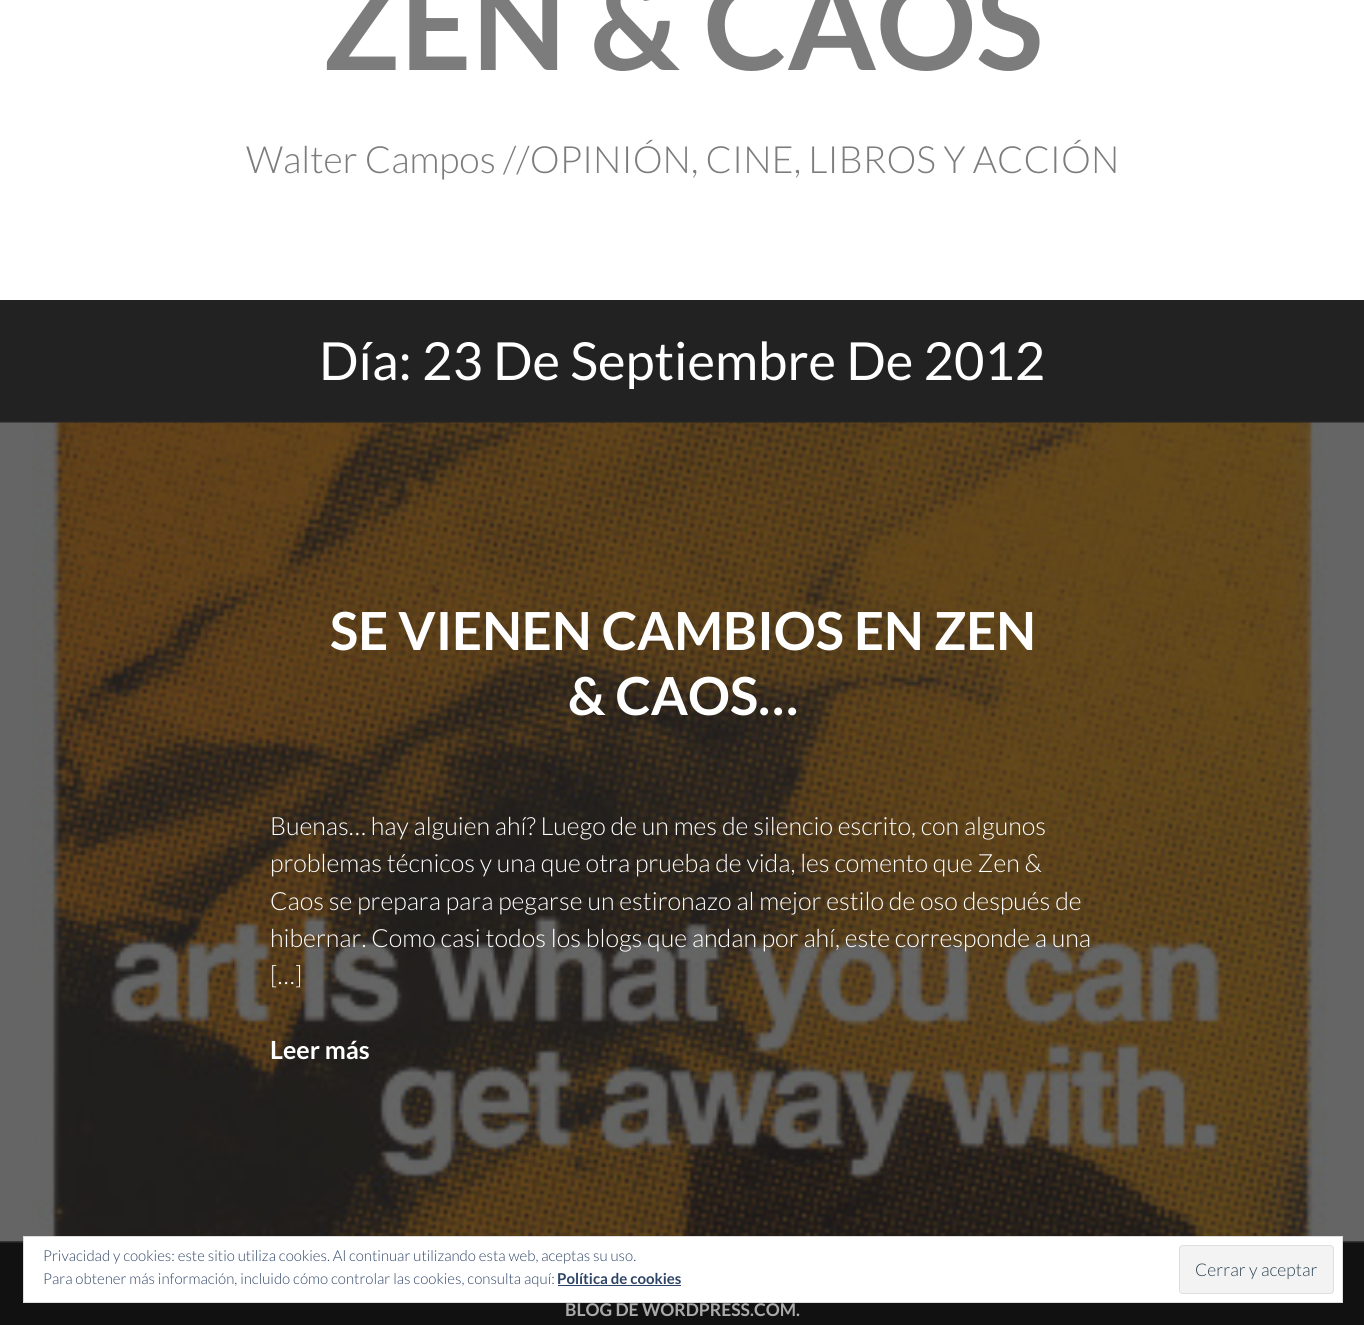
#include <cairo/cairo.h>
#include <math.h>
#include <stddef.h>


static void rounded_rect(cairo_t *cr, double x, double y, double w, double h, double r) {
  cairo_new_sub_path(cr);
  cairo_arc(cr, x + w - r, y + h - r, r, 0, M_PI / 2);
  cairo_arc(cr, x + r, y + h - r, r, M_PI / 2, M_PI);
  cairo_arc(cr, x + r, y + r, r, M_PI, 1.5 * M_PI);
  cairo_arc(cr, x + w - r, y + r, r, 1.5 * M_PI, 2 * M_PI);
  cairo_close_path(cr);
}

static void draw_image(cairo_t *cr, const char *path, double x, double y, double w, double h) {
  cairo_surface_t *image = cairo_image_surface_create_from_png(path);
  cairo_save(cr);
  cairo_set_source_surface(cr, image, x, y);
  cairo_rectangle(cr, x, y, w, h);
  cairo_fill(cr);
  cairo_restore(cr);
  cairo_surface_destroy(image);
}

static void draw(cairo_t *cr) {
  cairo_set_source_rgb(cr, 1, 1, 1);
  cairo_paint(cr);
  cairo_set_source_rgb(cr, 34 / 255.0, 34 / 255.0, 34 / 255.0);
  cairo_rectangle(cr, 0, 300, 1364, 943);
  cairo_fill(cr);
  cairo_set_source_rgb(cr, 37 / 255.0, 37 / 255.0, 37 / 255.0);
  cairo_rectangle(cr, 0, 421, 1364, 1);
  cairo_fill(cr);
  cairo_rectangle(cr, 0, 1241, 1364, 1);
  cairo_fill(cr);
  draw_image(cr, "images/1.png", 0, 422, 1364, 820);
  cairo_set_source_rgb(cr, 17 / 255.0, 17 / 255.0, 17 / 255.0);
  cairo_rectangle(cr, 0, 1243, 1364, 82);
  cairo_fill(cr);
  cairo_set_source_rgb(cr, 1, 1, 1);
  cairo_rectangle(cr, 23.5, 1236.5, 1319, 66);
  cairo_fill_preserve(cr);
  cairo_set_source_rgb(cr, 222 / 255.0, 222 / 255.0, 222 / 255.0);
  cairo_set_line_width(cr, 1);
  cairo_stroke(cr);
  cairo_set_source_rgb(cr, 46 / 255.0, 68 / 255.0, 103 / 255.0);
  cairo_rectangle(cr, 558, 1285, 123, 1);
  cairo_fill(cr);
  cairo_set_source_rgb(cr, 243 / 255.0, 243 / 255.0, 243 / 255.0);
  rounded_rect(cr, 1179.5, 1245.5, 154, 48, 3.5);
  cairo_fill_preserve(cr);
  cairo_set_source_rgb(cr, 222 / 255.0, 222 / 255.0, 222 / 255.0);
  cairo_stroke(cr);
  cairo_select_font_face(cr, "Lato", CAIRO_FONT_SLANT_NORMAL, CAIRO_FONT_WEIGHT_BOLD);
  cairo_set_font_size(cr, 125);
  cairo_set_source_rgb(cr, 124 / 255.0, 124 / 255.0, 124 / 255.0);
  cairo_move_to(cr, 323, 70);
  cairo_show_text(cr, "ZEN & CAOS");
  cairo_select_font_face(cr, "Lato Light", CAIRO_FONT_SLANT_NORMAL, CAIRO_FONT_WEIGHT_NORMAL);
  cairo_set_font_size(cr, 37.5);
  cairo_move_to(cr, 246, 173);
  cairo_show_text(cr, "Walter Campos //OPINIÓN, CINE, LIBROS Y ACCIÓN");
  cairo_select_font_face(cr, "Lato", CAIRO_FONT_SLANT_NORMAL, CAIRO_FONT_WEIGHT_NORMAL);
  cairo_set_font_size(cr, 52.5);
  cairo_set_source_rgb(cr, 1, 1, 1);
  cairo_move_to(cr, 319, 380);
  cairo_show_text(cr, "Día: 23 De Septiembre De 2012");
  cairo_select_font_face(cr, "Lato", CAIRO_FONT_SLANT_NORMAL, CAIRO_FONT_WEIGHT_BOLD);
  cairo_move_to(cr, 330, 650);
  cairo_show_text(cr, "SE VIENEN CAMBIOS EN ZEN");
  cairo_move_to(cr, 568, 715);
  cairo_show_text(cr, "& CAOS…");
  cairo_select_font_face(cr, "Lato Light", CAIRO_FONT_SLANT_NORMAL, CAIRO_FONT_WEIGHT_NORMAL);
  cairo_set_font_size(cr, 25);
  cairo_move_to(cr, 270, 835);
  cairo_show_text(cr, "Buenas… hay alguien ahí? Luego de un mes de silencio escrito, con algunos");
  cairo_move_to(cr, 270, 872);
  cairo_show_text(cr, "problemas técnicos y una que otra prueba de vida, les comento que Zen &");
  cairo_move_to(cr, 270, 910);
  cairo_show_text(cr, "Caos se prepara para pegarse un estironazo al mejor estilo de oso después de");
  cairo_move_to(cr, 270, 947);
  cairo_show_text(cr, "hibernar. Como casi todos los blogs que andan por ahí, este corresponde a una");
  cairo_move_to(cr, 270, 984);
  cairo_show_text(cr, "[…]");
  cairo_select_font_face(cr, "Lato", CAIRO_FONT_SLANT_NORMAL, CAIRO_FONT_WEIGHT_BOLD);
  cairo_move_to(cr, 270, 1059);
  cairo_show_text(cr, "Leer más");
  cairo_set_font_size(cr, 17.5);
  cairo_set_source_rgb(cr, 170 / 255.0, 170 / 255.0, 170 / 255.0);
  cairo_move_to(cr, 565, 1316);
  cairo_show_text(cr, "BLOG DE WORDPRESS.COM.");
  cairo_select_font_face(cr, "Lato Light", CAIRO_FONT_SLANT_NORMAL, CAIRO_FONT_WEIGHT_NORMAL);
  cairo_set_font_size(cr, 15);
  cairo_set_source_rgb(cr, 46 / 255.0, 68 / 255.0, 103 / 255.0);
  cairo_move_to(cr, 43, 1261);
  cairo_show_text(cr, "Privacidad y cookies: este sitio utiliza cookies. Al continuar utilizando esta web, aceptas su uso.");
  cairo_move_to(cr, 43, 1284);
  cairo_show_text(cr, "Para obtener más información, incluido cómo controlar las cookies, consulta aquí:");
  cairo_select_font_face(cr, "Lato", CAIRO_FONT_SLANT_NORMAL, CAIRO_FONT_WEIGHT_BOLD);
  cairo_move_to(cr, 557, 1284);
  cairo_show_text(cr, "Política de cookies");
  cairo_select_font_face(cr, "Lato Light", CAIRO_FONT_SLANT_NORMAL, CAIRO_FONT_WEIGHT_NORMAL);
  cairo_set_font_size(cr, 17.5);
  cairo_set_source_rgb(cr, 46 / 255.0, 68 / 255.0, 83 / 255.0);
  cairo_move_to(cr, 1195, 1276);
  cairo_show_text(cr, "Cerrar y aceptar");
}

int main(void) {
  cairo_surface_t *surface = cairo_image_surface_create(CAIRO_FORMAT_RGB24, 1364, 1325);
  cairo_t *cr = cairo_create(surface);
  cairo_font_options_t *options = cairo_font_options_create();
  cairo_font_options_set_hint_metrics(options, CAIRO_HINT_METRICS_OFF);
  cairo_font_options_set_hint_style(options, CAIRO_HINT_STYLE_NONE);
  cairo_set_font_options(cr, options);
  cairo_set_miter_limit(cr, 4);
  draw(cr);
  cairo_surface_write_to_png(surface, "out.png");
  cairo_font_options_destroy(options);
  cairo_destroy(cr);
  cairo_surface_destroy(surface);
  return 0;
}
